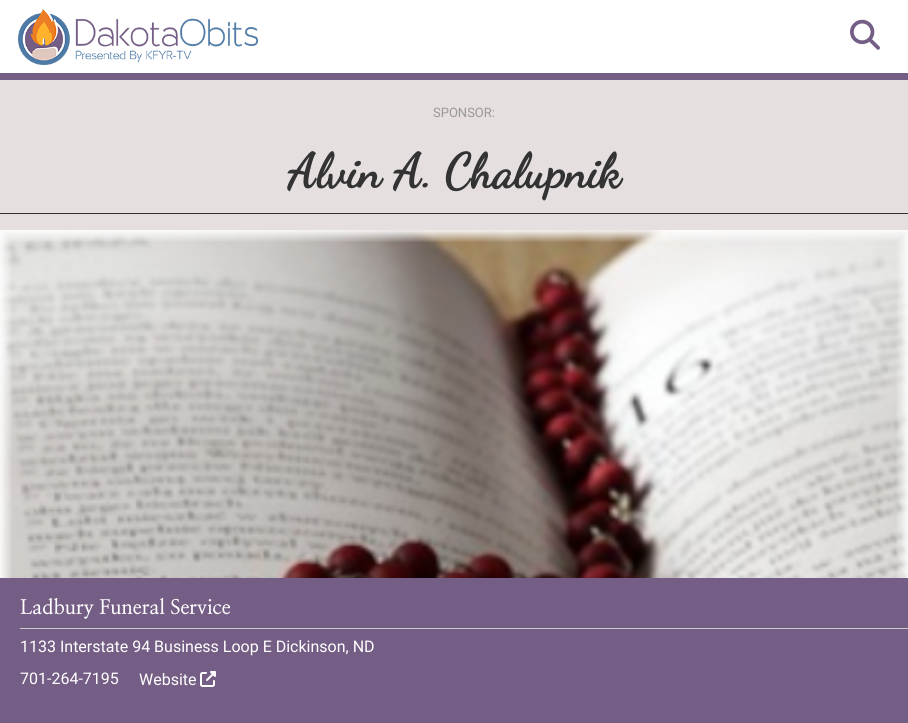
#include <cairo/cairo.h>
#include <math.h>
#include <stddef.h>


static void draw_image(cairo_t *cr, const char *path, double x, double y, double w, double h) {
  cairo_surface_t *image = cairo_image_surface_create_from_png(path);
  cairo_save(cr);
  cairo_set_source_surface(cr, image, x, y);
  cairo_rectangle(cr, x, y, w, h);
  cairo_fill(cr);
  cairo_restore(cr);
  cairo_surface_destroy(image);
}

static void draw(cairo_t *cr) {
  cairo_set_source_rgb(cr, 229 / 255.0, 224 / 255.0, 223 / 255.0);
  cairo_paint(cr);
  cairo_set_source_rgb(cr, 1, 1, 1);
  cairo_rectangle(cr, 0, 0, 908, 73);
  cairo_fill(cr);
  cairo_set_source_rgb(cr, 117 / 255.0, 94 / 255.0, 133 / 255.0);
  cairo_rectangle(cr, 0, 73, 908, 7);
  cairo_fill(cr);
  draw_image(cr, "images/1.png", 18, 9, 240, 56);
  draw_image(cr, "images/2.png", 850, 19, 30, 31);
  cairo_set_source_rgb(cr, 51 / 255.0, 51 / 255.0, 51 / 255.0);
  cairo_rectangle(cr, 0, 213, 908, 1);
  cairo_fill(cr);
  draw_image(cr, "images/3.png", 0, 230, 908, 348);
  cairo_set_source_rgb(cr, 117 / 255.0, 94 / 255.0, 133 / 255.0);
  cairo_rectangle(cr, 0, 578, 908, 145);
  cairo_fill(cr);
  cairo_set_source_rgb(cr, 204 / 255.0, 204 / 255.0, 204 / 255.0);
  cairo_rectangle(cr, 20, 628, 888, 1);
  cairo_fill(cr);
  draw_image(cr, "images/4.png", 200, 671, 16, 16);
  cairo_select_font_face(cr, "Roboto", CAIRO_FONT_SLANT_NORMAL, CAIRO_FONT_WEIGHT_NORMAL);
  cairo_set_font_size(cr, 13);
  cairo_set_source_rgb(cr, 153 / 255.0, 153 / 255.0, 153 / 255.0);
  cairo_move_to(cr, 433, 117);
  cairo_show_text(cr, "SPONSOR:");
  cairo_select_font_face(cr, "Dancing Script", CAIRO_FONT_SLANT_NORMAL, CAIRO_FONT_WEIGHT_BOLD);
  cairo_set_font_size(cr, 48);
  cairo_set_source_rgb(cr, 51 / 255.0, 51 / 255.0, 51 / 255.0);
  cairo_move_to(cr, 288, 187);
  cairo_show_text(cr, "Alvin A. Chalupnik");
  cairo_select_font_face(cr, "NanumMyeongjo", CAIRO_FONT_SLANT_NORMAL, CAIRO_FONT_WEIGHT_BOLD);
  cairo_set_font_size(cr, 20);
  cairo_set_source_rgb(cr, 1, 1, 1);
  cairo_move_to(cr, 20, 614);
  cairo_show_text(cr, "Ladbury Funeral Service");
  cairo_select_font_face(cr, "Roboto", CAIRO_FONT_SLANT_NORMAL, CAIRO_FONT_WEIGHT_NORMAL);
  cairo_set_font_size(cr, 16);
  cairo_move_to(cr, 20, 652);
  cairo_show_text(cr, "1133 Interstate 94 Business Loop E Dickinson, ND");
  cairo_move_to(cr, 20, 684);
  cairo_show_text(cr, "701-264-7195");
  cairo_move_to(cr, 139, 685);
  cairo_show_text(cr, "Website");
}

int main(void) {
  cairo_surface_t *surface = cairo_image_surface_create(CAIRO_FORMAT_RGB24, 908, 723);
  cairo_t *cr = cairo_create(surface);
  cairo_font_options_t *options = cairo_font_options_create();
  cairo_font_options_set_hint_metrics(options, CAIRO_HINT_METRICS_OFF);
  cairo_font_options_set_hint_style(options, CAIRO_HINT_STYLE_NONE);
  cairo_set_font_options(cr, options);
  cairo_set_miter_limit(cr, 4);
  draw(cr);
  cairo_surface_write_to_png(surface, "out.png");
  cairo_font_options_destroy(options);
  cairo_destroy(cr);
  cairo_surface_destroy(surface);
  return 0;
}
